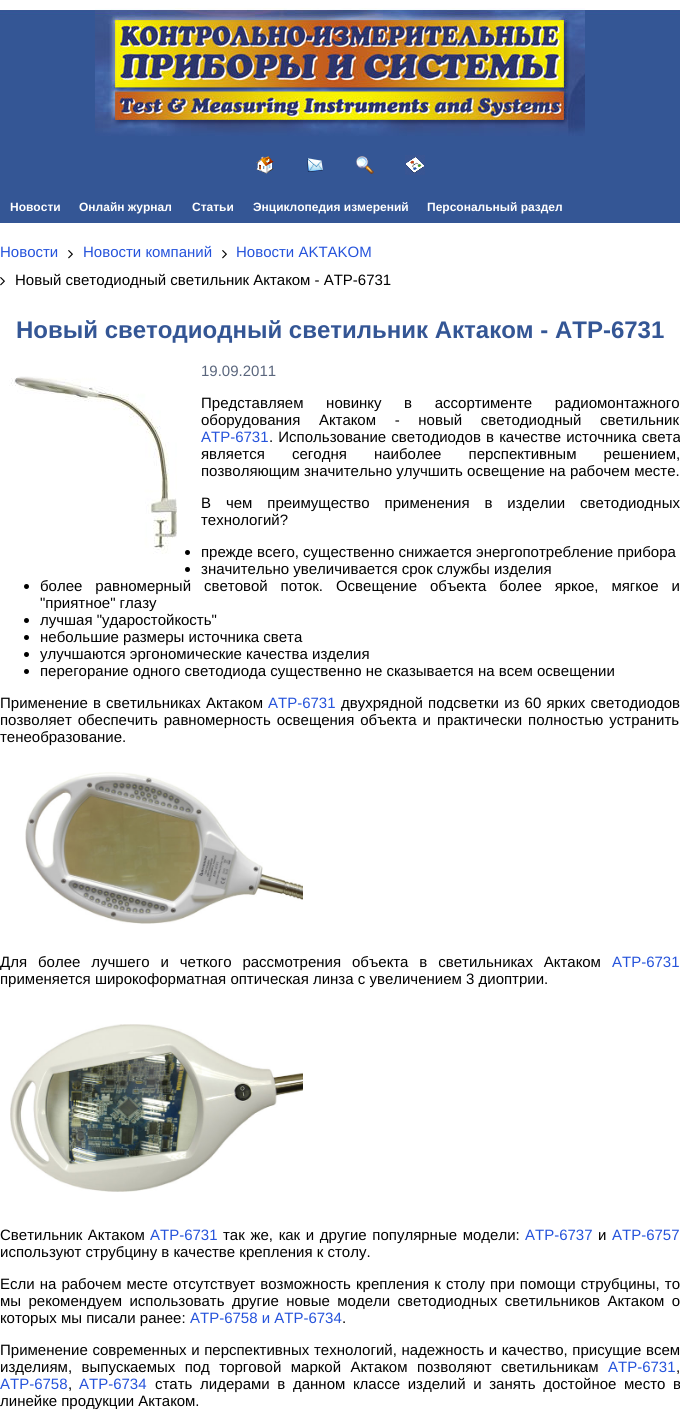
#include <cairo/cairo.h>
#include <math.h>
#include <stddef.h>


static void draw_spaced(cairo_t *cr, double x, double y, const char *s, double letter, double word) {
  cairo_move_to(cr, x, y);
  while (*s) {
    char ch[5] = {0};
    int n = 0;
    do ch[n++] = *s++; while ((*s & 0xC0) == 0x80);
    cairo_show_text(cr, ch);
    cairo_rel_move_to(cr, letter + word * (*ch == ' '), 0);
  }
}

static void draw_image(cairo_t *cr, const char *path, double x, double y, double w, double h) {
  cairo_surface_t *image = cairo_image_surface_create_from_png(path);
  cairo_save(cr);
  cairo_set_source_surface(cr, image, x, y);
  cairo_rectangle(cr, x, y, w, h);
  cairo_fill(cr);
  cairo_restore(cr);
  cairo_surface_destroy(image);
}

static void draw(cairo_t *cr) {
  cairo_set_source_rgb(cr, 1, 1, 1);
  cairo_paint(cr);
  draw_image(cr, "images/1.png", 0, 10, 680, 130);
  draw_image(cr, "images/2.png", 95, 8, 490, 128);
  cairo_set_source_rgb(cr, 52 / 255.0, 86 / 255.0, 149 / 255.0);
  cairo_rectangle(cr, 0, 140, 680, 83);
  cairo_fill(cr);
  draw_image(cr, "images/3.png", 256, 156, 18, 18);
  draw_image(cr, "images/4.png", 307, 158, 16, 14);
  draw_image(cr, "images/5.png", 356, 156, 18, 18);
  draw_image(cr, "images/6.png", 405, 155, 20, 20);
  draw_image(cr, "images/7.png", 68, 250, 5, 9);
  draw_image(cr, "images/7.png", 222, 250, 5, 9);
  draw_image(cr, "images/7.png", 0, 277, 5, 9);
  draw_image(cr, "images/8.png", 9, 376, 168, 178);
  cairo_set_source_rgb(cr, 0, 0, 0);
  cairo_arc(cr, 187.5, 552.5, 2.5, 0, 2 * M_PI);
  cairo_fill(cr);
  cairo_arc(cr, 187.5, 569.5, 2.5, 0, 2 * M_PI);
  cairo_fill(cr);
  cairo_arc(cr, 26.5, 586.5, 2.5, 0, 2 * M_PI);
  cairo_fill(cr);
  cairo_arc(cr, 26.5, 620.5, 2.5, 0, 2 * M_PI);
  cairo_fill(cr);
  cairo_arc(cr, 26.5, 637.5, 2.5, 0, 2 * M_PI);
  cairo_fill(cr);
  cairo_arc(cr, 26.5, 654.5, 2.5, 0, 2 * M_PI);
  cairo_fill(cr);
  cairo_arc(cr, 26.5, 671.5, 2.5, 0, 2 * M_PI);
  cairo_fill(cr);
  draw_image(cr, "images/9.png", 25, 772, 278, 152);
  draw_image(cr, "images/10.png", 10, 1024, 293, 168);
  cairo_select_font_face(cr, "Liberation Sans", CAIRO_FONT_SLANT_NORMAL, CAIRO_FONT_WEIGHT_BOLD);
  cairo_set_font_size(cr, 12);
  cairo_set_source_rgb(cr, 1, 1, 1);
  cairo_move_to(cr, 10, 211);
  cairo_show_text(cr, "Новости");
  cairo_move_to(cr, 79, 211);
  cairo_show_text(cr, "Онлайн журнал");
  cairo_move_to(cr, 192, 211);
  cairo_show_text(cr, "Статьи");
  cairo_move_to(cr, 253, 211);
  cairo_show_text(cr, "Энциклопедия измерений");
  cairo_move_to(cr, 427, 211);
  cairo_show_text(cr, "Персональный раздел");
  cairo_select_font_face(cr, "Liberation Sans", CAIRO_FONT_SLANT_NORMAL, CAIRO_FONT_WEIGHT_NORMAL);
  cairo_set_font_size(cr, 15);
  cairo_set_source_rgb(cr, 37 / 255.0, 83 / 255.0, 219 / 255.0);
  cairo_move_to(cr, 0, 257);
  cairo_show_text(cr, "Новости");
  cairo_move_to(cr, 83, 257);
  cairo_show_text(cr, "Новости компаний");
  cairo_move_to(cr, 236, 257);
  cairo_show_text(cr, "Новости AKTAKOM");
  cairo_set_source_rgb(cr, 0, 0, 0);
  cairo_move_to(cr, 15, 285);
  cairo_show_text(cr, "Новый светодиодный светильник Актаком - АТР-6731");
  cairo_select_font_face(cr, "Liberation Sans", CAIRO_FONT_SLANT_NORMAL, CAIRO_FONT_WEIGHT_BOLD);
  cairo_set_font_size(cr, 24);
  cairo_set_source_rgb(cr, 52 / 255.0, 86 / 255.0, 149 / 255.0);
  cairo_move_to(cr, 16, 338);
  cairo_show_text(cr, "Новый светодиодный светильник Актаком - АТР-6731");
  cairo_select_font_face(cr, "Liberation Sans", CAIRO_FONT_SLANT_NORMAL, CAIRO_FONT_WEIGHT_NORMAL);
  cairo_set_font_size(cr, 15);
  cairo_set_source_rgb(cr, 90 / 255.0, 102 / 255.0, 125 / 255.0);
  cairo_move_to(cr, 201, 376);
  cairo_show_text(cr, "19.09.2011");
  cairo_set_source_rgb(cr, 0, 0, 0);
  draw_spaced(cr, 201, 408, "Представляем новинку в ассортименте радиомонтажного", 0, 18.5);
  draw_spaced(cr, 201, 425, "оборудования Актаком - новый светодиодный светильник", 0, 14.5);
  cairo_set_source_rgb(cr, 37 / 255.0, 83 / 255.0, 219 / 255.0);
  cairo_move_to(cr, 201, 442);
  cairo_show_text(cr, "АТР-6731");
  cairo_set_source_rgb(cr, 0, 0, 0);
  draw_spaced(cr, 269, 442, ". Использование светодиодов в качестве источника света", 0, 1);
  draw_spaced(cr, 201, 459, "является сегодня наиболее перспективным решением,", 0, 23);
  cairo_move_to(cr, 201, 476);
  cairo_show_text(cr, "позволяющим значительно улучшить освещение на рабочем месте.");
  draw_spaced(cr, 201, 508, "В чем преимущество применения в изделии светодиодных", 0, 10.75);
  cairo_move_to(cr, 201, 525);
  cairo_show_text(cr, "технологий?");
  cairo_move_to(cr, 201, 557);
  cairo_show_text(cr, "прежде всего, существенно снижается энергопотребление прибора");
  cairo_move_to(cr, 201, 574);
  cairo_show_text(cr, "значительно увеличивается срок службы изделия");
  draw_spaced(cr, 40, 591, "более равномерный световой поток. Освещение объекта более яркое, мягкое и", 0, 8.75);
  cairo_move_to(cr, 40, 608);
  cairo_show_text(cr, "\"приятное\" глазу");
  cairo_move_to(cr, 40, 625);
  cairo_show_text(cr, "лучшая \"ударостойкость\"");
  cairo_move_to(cr, 40, 642);
  cairo_show_text(cr, "небольшие размеры источника света");
  cairo_move_to(cr, 40, 659);
  cairo_show_text(cr, "улучшаются эргономические качества изделия");
  cairo_move_to(cr, 40, 676);
  cairo_show_text(cr, "перегорание одного светодиода существенно не сказывается на всем освещении");
  draw_spaced(cr, 0, 708, "Применение в светильниках Актаком", 0, 1);
  cairo_set_source_rgb(cr, 37 / 255.0, 83 / 255.0, 219 / 255.0);
  cairo_move_to(cr, 268, 708);
  cairo_show_text(cr, "АТР-6731");
  cairo_set_source_rgb(cr, 0, 0, 0);
  draw_spaced(cr, 341, 708, "двухрядной подсветки из 60 ярких светодиодов", 0, 1);
  draw_spaced(cr, 0, 725, "позволяет обеспечить равномерность освещения объекта и практически полностью устранить", 0, 1.75);
  cairo_move_to(cr, 0, 742);
  cairo_show_text(cr, "тенеобразование.");
  draw_spaced(cr, 0, 967, "Для более лучшего и четкого рассмотрения объекта в светильниках Актаком", 0, 6.75);
  cairo_set_source_rgb(cr, 37 / 255.0, 83 / 255.0, 219 / 255.0);
  cairo_move_to(cr, 612, 967);
  cairo_show_text(cr, "АТР-6731");
  cairo_set_source_rgb(cr, 0, 0, 0);
  cairo_move_to(cr, 0, 984);
  cairo_show_text(cr, "применяется широкоформатная оптическая линза с увеличением 3 диоптрии.");
  draw_spaced(cr, 0, 1240, "Светильник Актаком", 0, 1.5);
  cairo_set_source_rgb(cr, 37 / 255.0, 83 / 255.0, 219 / 255.0);
  cairo_move_to(cr, 150, 1240);
  cairo_show_text(cr, "АТР-6731");
  cairo_set_source_rgb(cr, 0, 0, 0);
  draw_spaced(cr, 223, 1240, "так же, как и другие популярные модели:", 0, 1.5);
  cairo_set_source_rgb(cr, 37 / 255.0, 83 / 255.0, 219 / 255.0);
  cairo_move_to(cr, 525, 1240);
  cairo_show_text(cr, "АТР-6737");
  cairo_set_source_rgb(cr, 0, 0, 0);
  cairo_move_to(cr, 598, 1240);
  cairo_show_text(cr, "и");
  cairo_set_source_rgb(cr, 37 / 255.0, 83 / 255.0, 219 / 255.0);
  cairo_move_to(cr, 612, 1240);
  cairo_show_text(cr, "АТР-6757");
  cairo_set_source_rgb(cr, 0, 0, 0);
  cairo_move_to(cr, 0, 1257);
  cairo_show_text(cr, "используют струбцину в качестве крепления к столу.");
  draw_spaced(cr, 0, 1289, "Если на рабочем месте отсутствует возможность крепления к столу при помощи струбцины, то", 0, 0.9);
  draw_spaced(cr, 0, 1306, "мы рекомендуем использовать другие новые модели светодиодных светильников Актаком о", 0, 3.25);
  cairo_move_to(cr, 0, 1323);
  cairo_show_text(cr, "которых мы писали ранее:");
  cairo_set_source_rgb(cr, 37 / 255.0, 83 / 255.0, 219 / 255.0);
  cairo_move_to(cr, 190, 1323);
  cairo_show_text(cr, "АТР-6758 и АТР-6734");
  cairo_set_source_rgb(cr, 0, 0, 0);
  cairo_move_to(cr, 342, 1323);
  cairo_show_text(cr, ".");
  draw_spaced(cr, 0, 1355, "Применение современных и перспективных технологий, надежность и качество, присущие всем", 0, 0.5);
  draw_spaced(cr, 0, 1372, "изделиям, выпускаемых под торговой маркой Актаком позволяют светильникам", 0, 5.25);
  cairo_set_source_rgb(cr, 37 / 255.0, 83 / 255.0, 219 / 255.0);
  cairo_move_to(cr, 608, 1372);
  cairo_show_text(cr, "АТР-6731");
  cairo_set_source_rgb(cr, 0, 0, 0);
  cairo_move_to(cr, 676, 1372);
  cairo_show_text(cr, ",");
  cairo_set_source_rgb(cr, 37 / 255.0, 83 / 255.0, 219 / 255.0);
  cairo_move_to(cr, 0, 1389);
  cairo_show_text(cr, "АТР-6758");
  cairo_set_source_rgb(cr, 0, 0, 0);
  cairo_move_to(cr, 68, 1389);
  cairo_show_text(cr, ",");
  cairo_set_source_rgb(cr, 37 / 255.0, 83 / 255.0, 219 / 255.0);
  cairo_move_to(cr, 79, 1389);
  cairo_show_text(cr, "АТР-6734");
  cairo_set_source_rgb(cr, 0, 0, 0);
  draw_spaced(cr, 155, 1389, "стать лидерами в данном классе изделий и занять достойное место в", 0, 3.5);
  cairo_move_to(cr, 0, 1406);
  cairo_show_text(cr, "линейке продукции Актаком.");
}

int main(void) {
  cairo_surface_t *surface = cairo_image_surface_create(CAIRO_FORMAT_RGB24, 680, 1424);
  cairo_t *cr = cairo_create(surface);
  cairo_font_options_t *options = cairo_font_options_create();
  cairo_font_options_set_hint_metrics(options, CAIRO_HINT_METRICS_OFF);
  cairo_font_options_set_hint_style(options, CAIRO_HINT_STYLE_NONE);
  cairo_set_font_options(cr, options);
  cairo_set_miter_limit(cr, 4);
  draw(cr);
  cairo_surface_write_to_png(surface, "out.png");
  cairo_font_options_destroy(options);
  cairo_destroy(cr);
  cairo_surface_destroy(surface);
  return 0;
}
